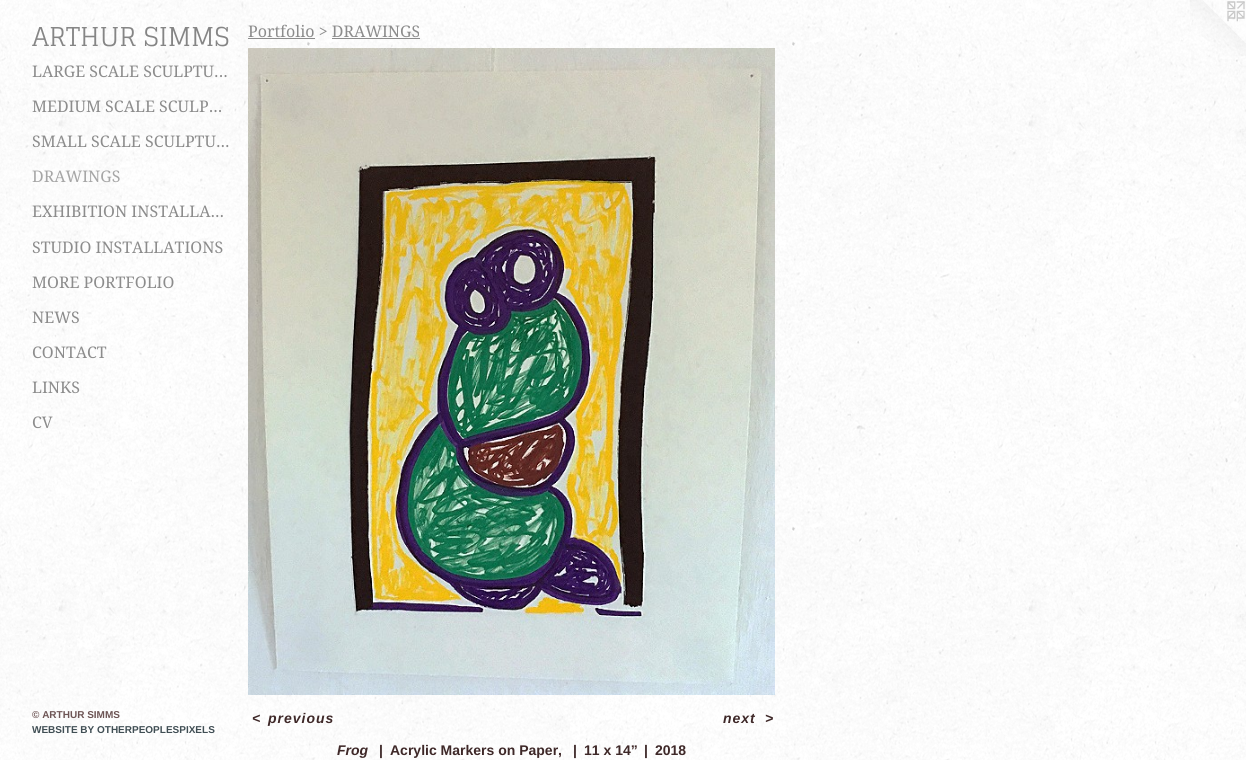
#include <cairo/cairo.h>
#include <math.h>
#include <stddef.h>


static void draw_spaced(cairo_t *cr, double x, double y, const char *s, double letter, double word) {
  cairo_move_to(cr, x, y);
  while (*s) {
    char ch[5] = {0};
    int n = 0;
    do ch[n++] = *s++; while ((*s & 0xC0) == 0x80);
    cairo_show_text(cr, ch);
    cairo_rel_move_to(cr, letter + word * (*ch == ' '), 0);
  }
}

static void draw_image(cairo_t *cr, const char *path, double x, double y, double w, double h) {
  cairo_surface_t *image = cairo_image_surface_create_from_png(path);
  cairo_save(cr);
  cairo_set_source_surface(cr, image, x, y);
  cairo_rectangle(cr, x, y, w, h);
  cairo_fill(cr);
  cairo_restore(cr);
  cairo_surface_destroy(image);
}

static void draw(cairo_t *cr) {
  cairo_set_source_rgb(cr, 1, 1, 1);
  cairo_paint(cr);
  draw_image(cr, "images/1.png", 0, 0, 1246, 760);
  cairo_set_source_rgb(cr, 140 / 255.0, 140 / 255.0, 140 / 255.0);
  cairo_rectangle(cr, 248, 38, 67, 1);
  cairo_fill(cr);
  cairo_rectangle(cr, 332, 38, 88, 1);
  cairo_fill(cr);
  draw_image(cr, "images/2.png", 248, 48, 527, 647);
  draw_image(cr, "images/3.png", 1190, 0, 56, 56);
  cairo_select_font_face(cr, "Glegoo", CAIRO_FONT_SLANT_NORMAL, CAIRO_FONT_WEIGHT_NORMAL);
  cairo_set_font_size(cr, 26);
  cairo_set_source_rgb(cr, 133 / 255.0, 133 / 255.0, 133 / 255.0);
  cairo_move_to(cr, 32, 46);
  cairo_show_text(cr, "ARTHUR SIMMS");
  cairo_select_font_face(cr, "Droid Serif", CAIRO_FONT_SLANT_NORMAL, CAIRO_FONT_WEIGHT_NORMAL);
  cairo_set_font_size(cr, 16);
  cairo_set_source_rgb(cr, 140 / 255.0, 140 / 255.0, 140 / 255.0);
  cairo_move_to(cr, 32, 77);
  cairo_show_text(cr, "LARGE SCALE SCULPTU...");
  cairo_move_to(cr, 32, 112);
  cairo_show_text(cr, "MEDIUM SCALE SCULP...");
  cairo_move_to(cr, 32, 147);
  cairo_show_text(cr, "SMALL SCALE SCULPTU...");
  cairo_set_source_rgb(cr, 166 / 255.0, 166 / 255.0, 166 / 255.0);
  cairo_move_to(cr, 32, 182);
  cairo_show_text(cr, "DRAWINGS");
  cairo_set_source_rgb(cr, 140 / 255.0, 140 / 255.0, 140 / 255.0);
  cairo_move_to(cr, 32, 217);
  cairo_show_text(cr, "EXHIBITION INSTALLA...");
  cairo_move_to(cr, 32, 253);
  cairo_show_text(cr, "STUDIO INSTALLATIONS");
  cairo_move_to(cr, 32, 288);
  cairo_show_text(cr, "MORE PORTFOLIO");
  cairo_move_to(cr, 32, 323);
  cairo_show_text(cr, "NEWS");
  cairo_move_to(cr, 32, 358);
  cairo_show_text(cr, "CONTACT");
  cairo_move_to(cr, 32, 393);
  cairo_show_text(cr, "LINKS");
  cairo_move_to(cr, 32, 428);
  cairo_show_text(cr, "CV");
  cairo_select_font_face(cr, "Liberation Sans", CAIRO_FONT_SLANT_NORMAL, CAIRO_FONT_WEIGHT_BOLD);
  cairo_set_font_size(cr, 10);
  cairo_set_source_rgb(cr, 109 / 255.0, 84 / 255.0, 84 / 255.0);
  cairo_move_to(cr, 32, 718);
  cairo_show_text(cr, "© ARTHUR SIMMS");
  cairo_set_source_rgb(cr, 64 / 255.0, 78 / 255.0, 84 / 255.0);
  cairo_move_to(cr, 32, 733);
  cairo_show_text(cr, "WEBSITE BY OTHERPEOPLESPIXELS");
  cairo_select_font_face(cr, "Droid Serif", CAIRO_FONT_SLANT_NORMAL, CAIRO_FONT_WEIGHT_NORMAL);
  cairo_set_font_size(cr, 16);
  cairo_set_source_rgb(cr, 140 / 255.0, 140 / 255.0, 140 / 255.0);
  cairo_move_to(cr, 248, 37);
  cairo_show_text(cr, "Portfolio > DRAWINGS");
  cairo_select_font_face(cr, "Liberation Sans", CAIRO_FONT_SLANT_ITALIC, CAIRO_FONT_WEIGHT_BOLD);
  cairo_set_font_size(cr, 14);
  cairo_set_source_rgb(cr, 62 / 255.0, 40 / 255.0, 40 / 255.0);
  draw_spaced(cr, 252, 723, "<", 1, 0);
  draw_spaced(cr, 268, 723, "previous", 1, 0);
  draw_spaced(cr, 723, 723, "next", 1, 0);
  draw_spaced(cr, 765, 723, ">", 1, 0);
  cairo_move_to(cr, 337, 755);
  cairo_show_text(cr, "Frog");
  cairo_select_font_face(cr, "Liberation Sans", CAIRO_FONT_SLANT_NORMAL, CAIRO_FONT_WEIGHT_BOLD);
  cairo_move_to(cr, 379, 755);
  cairo_show_text(cr, "|");
  cairo_move_to(cr, 390, 755);
  cairo_show_text(cr, "Acrylic Markers on Paper,");
  cairo_move_to(cr, 573, 755);
  cairo_show_text(cr, "|");
  cairo_move_to(cr, 584, 755);
  cairo_show_text(cr, "11 x 14”");
  cairo_move_to(cr, 644, 755);
  cairo_show_text(cr, "|");
  cairo_move_to(cr, 655, 755);
  cairo_show_text(cr, "2018");
}

int main(void) {
  cairo_surface_t *surface = cairo_image_surface_create(CAIRO_FORMAT_RGB24, 1246, 760);
  cairo_t *cr = cairo_create(surface);
  cairo_font_options_t *options = cairo_font_options_create();
  cairo_font_options_set_hint_metrics(options, CAIRO_HINT_METRICS_OFF);
  cairo_font_options_set_hint_style(options, CAIRO_HINT_STYLE_NONE);
  cairo_set_font_options(cr, options);
  cairo_set_miter_limit(cr, 4);
  draw(cr);
  cairo_surface_write_to_png(surface, "out.png");
  cairo_font_options_destroy(options);
  cairo_destroy(cr);
  cairo_surface_destroy(surface);
  return 0;
}
